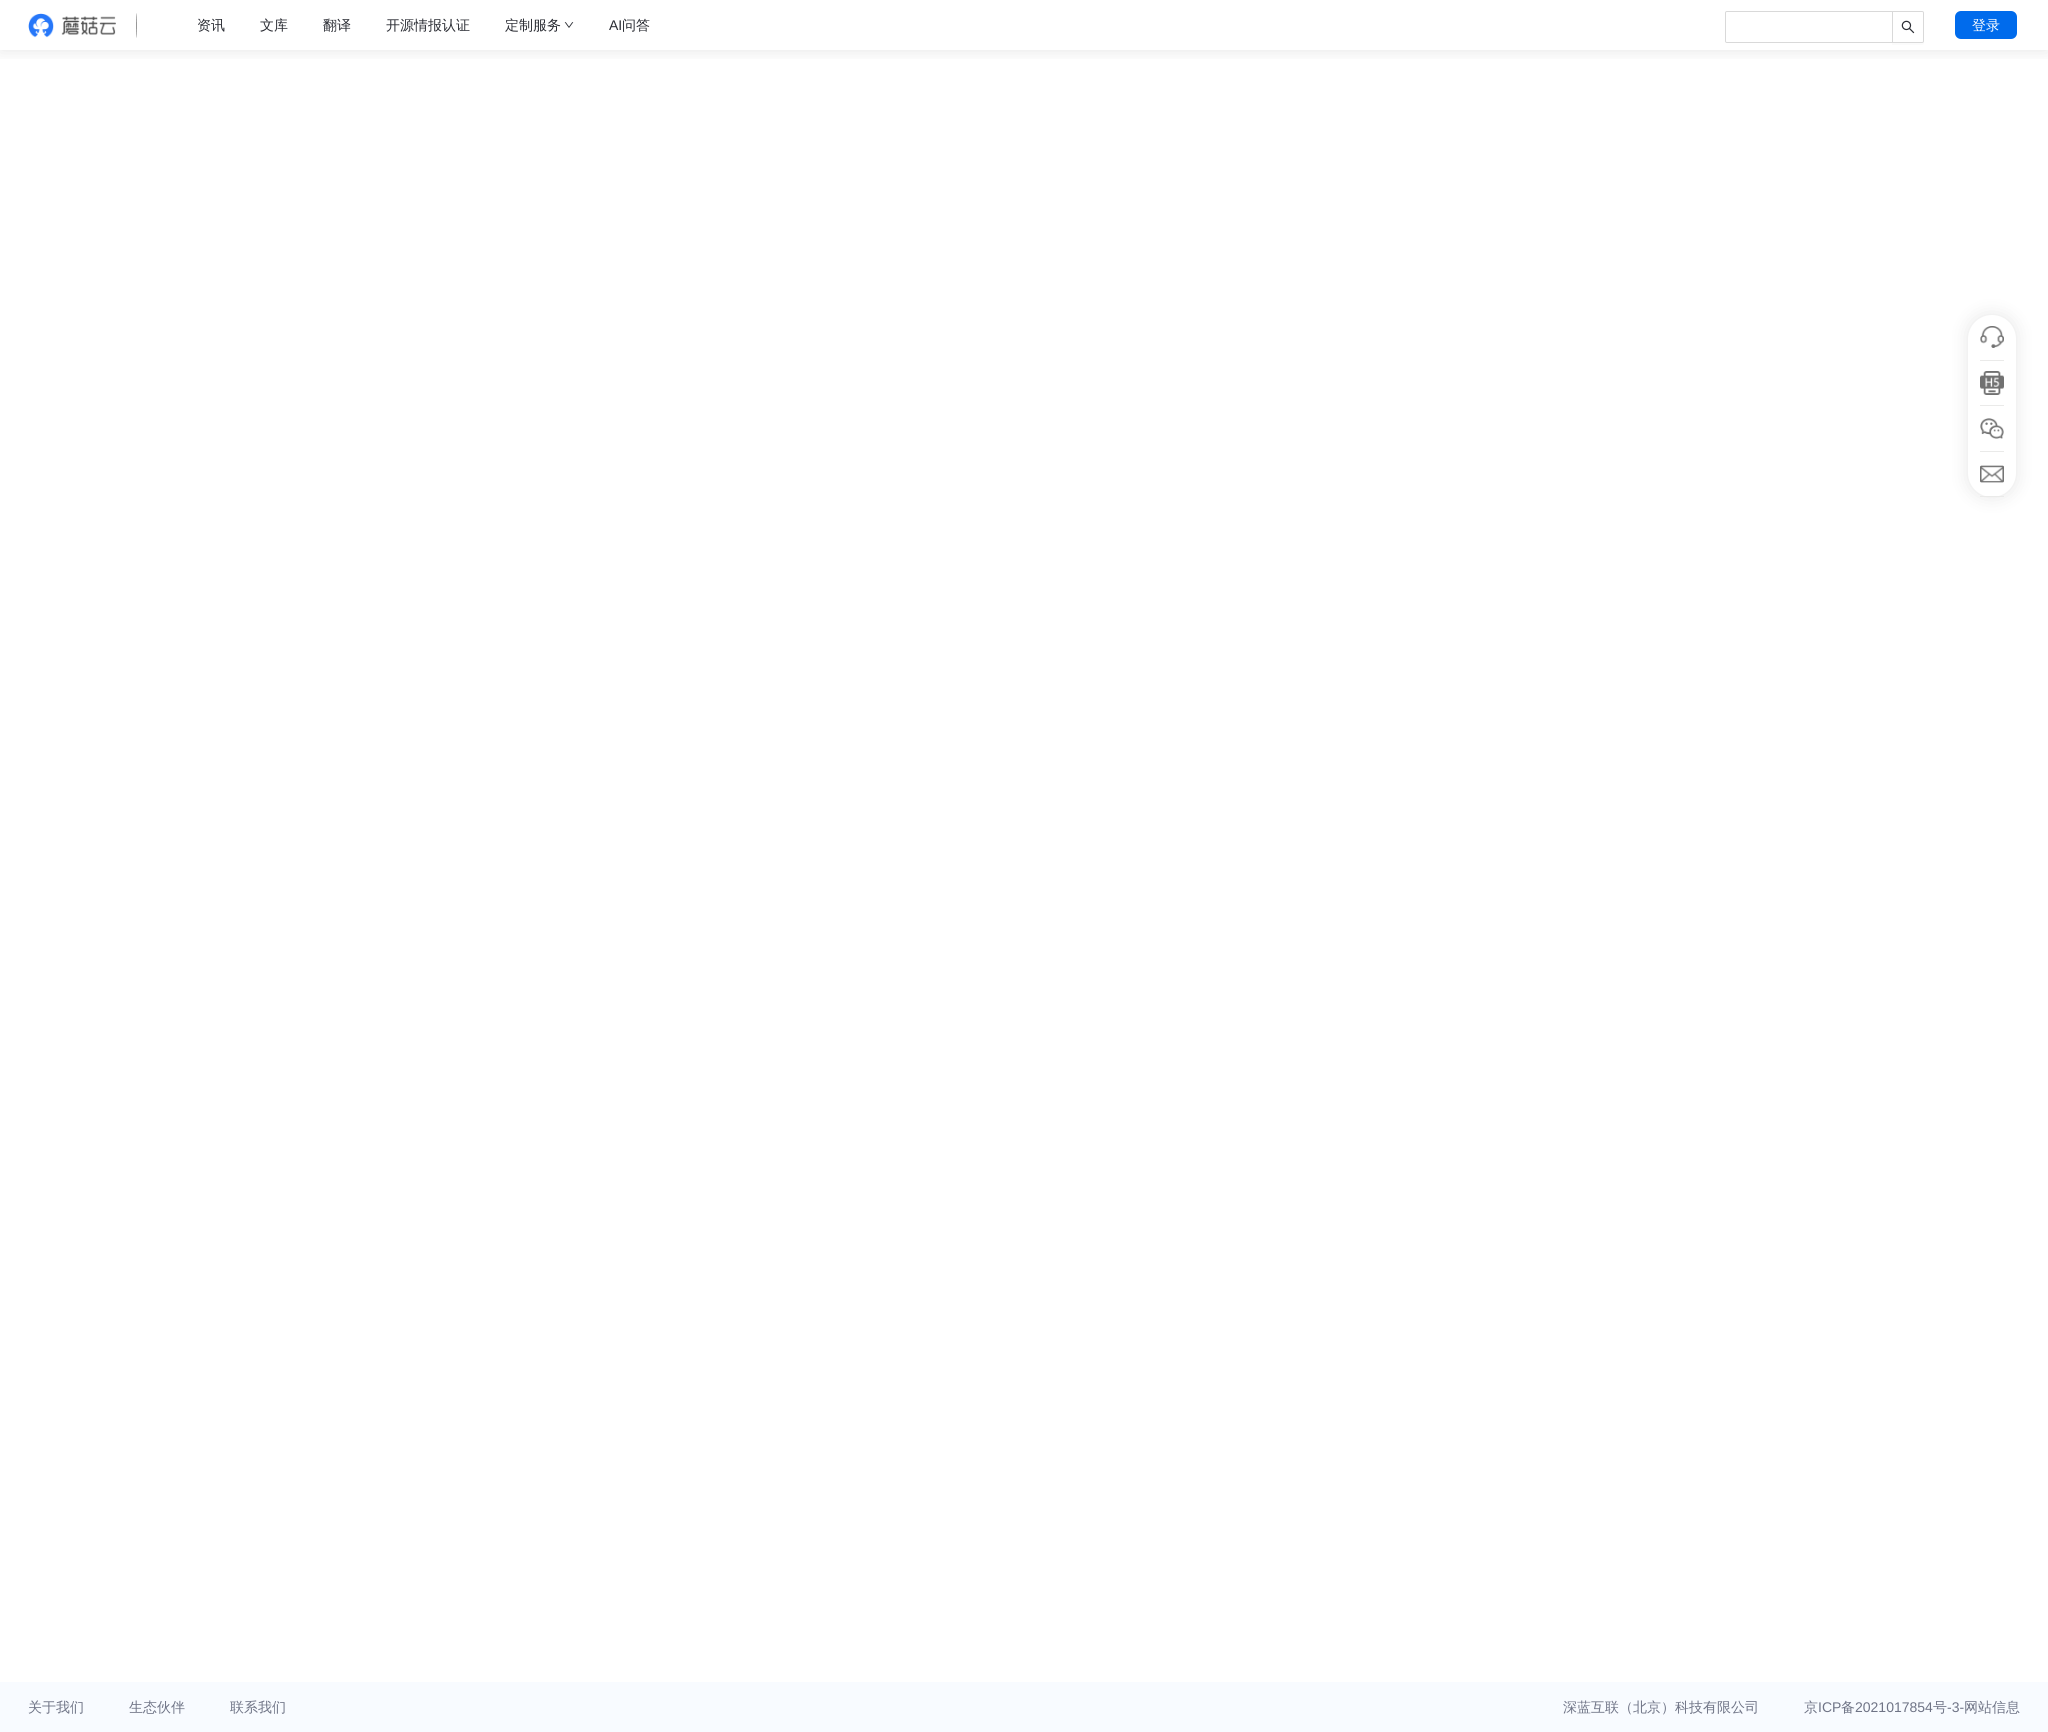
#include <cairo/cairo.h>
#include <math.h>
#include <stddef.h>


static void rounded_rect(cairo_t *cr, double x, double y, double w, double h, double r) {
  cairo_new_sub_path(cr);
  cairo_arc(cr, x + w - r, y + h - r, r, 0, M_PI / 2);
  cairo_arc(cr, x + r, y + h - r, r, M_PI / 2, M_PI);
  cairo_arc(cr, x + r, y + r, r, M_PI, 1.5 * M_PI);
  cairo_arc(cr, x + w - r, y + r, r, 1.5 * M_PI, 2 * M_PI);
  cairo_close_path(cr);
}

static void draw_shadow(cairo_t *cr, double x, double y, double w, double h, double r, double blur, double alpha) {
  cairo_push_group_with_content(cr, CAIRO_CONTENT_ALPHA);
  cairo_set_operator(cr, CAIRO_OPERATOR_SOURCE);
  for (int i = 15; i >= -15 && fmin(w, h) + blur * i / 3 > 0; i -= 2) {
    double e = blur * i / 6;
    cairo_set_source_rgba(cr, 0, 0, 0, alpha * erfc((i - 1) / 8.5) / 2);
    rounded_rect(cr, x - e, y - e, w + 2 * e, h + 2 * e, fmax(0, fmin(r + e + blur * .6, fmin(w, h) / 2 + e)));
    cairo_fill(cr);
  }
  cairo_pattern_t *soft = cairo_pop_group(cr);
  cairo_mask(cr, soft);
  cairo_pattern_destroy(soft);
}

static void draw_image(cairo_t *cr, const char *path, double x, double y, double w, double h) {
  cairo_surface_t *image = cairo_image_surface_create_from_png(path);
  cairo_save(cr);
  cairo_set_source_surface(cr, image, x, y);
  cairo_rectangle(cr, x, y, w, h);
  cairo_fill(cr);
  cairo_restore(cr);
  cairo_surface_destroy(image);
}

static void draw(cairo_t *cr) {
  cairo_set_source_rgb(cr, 1, 1, 1);
  cairo_paint(cr);
  cairo_save(cr);
  cairo_rectangle(cr, 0, 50, 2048, 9);
  cairo_clip(cr);
  cairo_set_source_rgb(cr, 54 / 255.0, 54 / 255.0, 54 / 255.0);
  draw_shadow(cr, 0, 0, 2048, 50, 0, 9, 0.13);
  cairo_restore(cr);
  draw_image(cr, "images/1.png", 28, 13, 88, 25);
  draw_image(cr, "images/2.png", 136, 13, 1, 25);
  draw_image(cr, "images/3.png", 564, 22, 10, 6);
  cairo_new_path(cr);
  cairo_move_to(cr, 1727, 11.5);
  cairo_line_to(cr, 1892.5, 11.5);
  cairo_line_to(cr, 1892.5, 42.5);
  cairo_line_to(cr, 1727, 42.5);
  cairo_curve_to(cr, 1726, 42.5, 1725.5, 42, 1725.5, 41);
  cairo_line_to(cr, 1725.5, 13);
  cairo_curve_to(cr, 1725.5, 12, 1726, 11.5, 1727, 11.5);
  cairo_close_path(cr);
  cairo_set_source_rgb(cr, 217 / 255.0, 217 / 255.0, 217 / 255.0);
  cairo_set_line_width(cr, 1);
  cairo_stroke(cr);
  cairo_set_source_rgb(cr, 251 / 255.0, 251 / 255.0, 251 / 255.0);
  cairo_new_path(cr);
  cairo_move_to(cr, 1892, 43);
  cairo_line_to(cr, 1892, 45);
  cairo_line_to(cr, 1922, 45);
  cairo_curve_to(cr, 1923, 45, 1924, 44, 1924, 43);
  cairo_line_to(cr, 1924, 41);
  cairo_curve_to(cr, 1924, 42, 1923, 43, 1922, 43);
  cairo_close_path(cr);
  cairo_fill(cr);
  cairo_set_source_rgb(cr, 1, 1, 1);
  cairo_new_path(cr);
  cairo_move_to(cr, 1892.5, 11.5);
  cairo_line_to(cr, 1922, 11.5);
  cairo_curve_to(cr, 1923, 11.5, 1923.5, 12, 1923.5, 13);
  cairo_line_to(cr, 1923.5, 41);
  cairo_curve_to(cr, 1923.5, 42, 1923, 42.5, 1922, 42.5);
  cairo_line_to(cr, 1892.5, 42.5);
  cairo_close_path(cr);
  cairo_fill_preserve(cr);
  cairo_set_source_rgb(cr, 217 / 255.0, 217 / 255.0, 217 / 255.0);
  cairo_stroke(cr);
  draw_image(cr, "images/4.png", 1901, 20, 14, 14);
  cairo_set_source_rgb(cr, 0, 107 / 255.0, 236 / 255.0);
  rounded_rect(cr, 1955, 11, 62, 28, 6);
  cairo_fill(cr);
  cairo_set_source_rgb(cr, 54 / 255.0, 54 / 255.0, 54 / 255.0);
  draw_shadow(cr, 1968, 315, 48, 182, 24, 9, 0.13);
  cairo_set_source_rgb(cr, 1, 1, 1);
  rounded_rect(cr, 1968, 315, 48, 182, 24);
  cairo_fill(cr);
  cairo_set_source_rgb(cr, 234 / 255.0, 234 / 255.0, 233 / 255.0);
  cairo_rectangle(cr, 1980, 360, 24, 1);
  cairo_fill(cr);
  draw_image(cr, "images/5.png", 1980, 326, 24, 22);
  cairo_rectangle(cr, 1980, 405, 24, 1);
  cairo_fill(cr);
  draw_image(cr, "images/6.png", 1980, 371, 24, 24);
  cairo_rectangle(cr, 1980, 451, 24, 1);
  cairo_fill(cr);
  draw_image(cr, "images/7.png", 1980, 418, 24, 21);
  cairo_rectangle(cr, 1980, 496, 24, 1);
  cairo_fill(cr);
  draw_image(cr, "images/8.png", 1980, 465, 24, 18);
  cairo_set_source_rgb(cr, 248 / 255.0, 251 / 255.0, 1);
  cairo_rectangle(cr, 0, 1682, 2048, 50);
  cairo_fill(cr);
  cairo_select_font_face(cr, "WenQuanYi Zen Hei Medium", CAIRO_FONT_SLANT_NORMAL, CAIRO_FONT_WEIGHT_NORMAL);
  cairo_set_font_size(cr, 14);
  cairo_set_source_rgb(cr, 43 / 255.0, 45 / 255.0, 52 / 255.0);
  cairo_move_to(cr, 197, 30);
  cairo_show_text(cr, "资讯");
  cairo_move_to(cr, 260, 30);
  cairo_show_text(cr, "文库");
  cairo_move_to(cr, 323, 30);
  cairo_show_text(cr, "翻译");
  cairo_move_to(cr, 386, 30);
  cairo_show_text(cr, "开源情报认证");
  cairo_move_to(cr, 505, 30);
  cairo_show_text(cr, "定制服务");
  cairo_select_font_face(cr, "Liberation Sans", CAIRO_FONT_SLANT_NORMAL, CAIRO_FONT_WEIGHT_NORMAL);
  cairo_move_to(cr, 609, 30);
  cairo_show_text(cr, "AI");
  cairo_select_font_face(cr, "WenQuanYi Zen Hei Medium", CAIRO_FONT_SLANT_NORMAL, CAIRO_FONT_WEIGHT_NORMAL);
  cairo_move_to(cr, 622, 30);
  cairo_show_text(cr, "问答");
  cairo_set_source_rgb(cr, 1, 1, 1);
  cairo_move_to(cr, 1972, 30);
  cairo_show_text(cr, "登录");
  cairo_set_source_rgb(cr, 111 / 255.0, 116 / 255.0, 134 / 255.0);
  cairo_move_to(cr, 28, 1712);
  cairo_show_text(cr, "关于我们");
  cairo_move_to(cr, 129, 1712);
  cairo_show_text(cr, "生态伙伴");
  cairo_move_to(cr, 230, 1712);
  cairo_show_text(cr, "联系我们");
  cairo_move_to(cr, 1563, 1712);
  cairo_show_text(cr, "深蓝互联（北京）科技有限公司");
  cairo_move_to(cr, 1804, 1712);
  cairo_show_text(cr, "京");
  cairo_select_font_face(cr, "Liberation Sans", CAIRO_FONT_SLANT_NORMAL, CAIRO_FONT_WEIGHT_NORMAL);
  cairo_move_to(cr, 1818, 1712);
  cairo_show_text(cr, "ICP");
  cairo_select_font_face(cr, "WenQuanYi Zen Hei Medium", CAIRO_FONT_SLANT_NORMAL, CAIRO_FONT_WEIGHT_NORMAL);
  cairo_move_to(cr, 1841, 1712);
  cairo_show_text(cr, "备");
  cairo_select_font_face(cr, "Liberation Sans", CAIRO_FONT_SLANT_NORMAL, CAIRO_FONT_WEIGHT_NORMAL);
  cairo_move_to(cr, 1855, 1712);
  cairo_show_text(cr, "2021017854");
  cairo_select_font_face(cr, "WenQuanYi Zen Hei Medium", CAIRO_FONT_SLANT_NORMAL, CAIRO_FONT_WEIGHT_NORMAL);
  cairo_move_to(cr, 1933, 1712);
  cairo_show_text(cr, "号");
  cairo_select_font_face(cr, "Liberation Sans", CAIRO_FONT_SLANT_NORMAL, CAIRO_FONT_WEIGHT_NORMAL);
  cairo_move_to(cr, 1947, 1712);
  cairo_show_text(cr, "-3-");
  cairo_select_font_face(cr, "WenQuanYi Zen Hei Medium", CAIRO_FONT_SLANT_NORMAL, CAIRO_FONT_WEIGHT_NORMAL);
  cairo_move_to(cr, 1964, 1712);
  cairo_show_text(cr, "网站信息");
}

int main(void) {
  cairo_surface_t *surface = cairo_image_surface_create(CAIRO_FORMAT_RGB24, 2048, 1732);
  cairo_t *cr = cairo_create(surface);
  cairo_font_options_t *options = cairo_font_options_create();
  cairo_font_options_set_hint_metrics(options, CAIRO_HINT_METRICS_OFF);
  cairo_font_options_set_hint_style(options, CAIRO_HINT_STYLE_NONE);
  cairo_set_font_options(cr, options);
  cairo_set_miter_limit(cr, 4);
  draw(cr);
  cairo_surface_write_to_png(surface, "out.png");
  cairo_font_options_destroy(options);
  cairo_destroy(cr);
  cairo_surface_destroy(surface);
  return 0;
}
